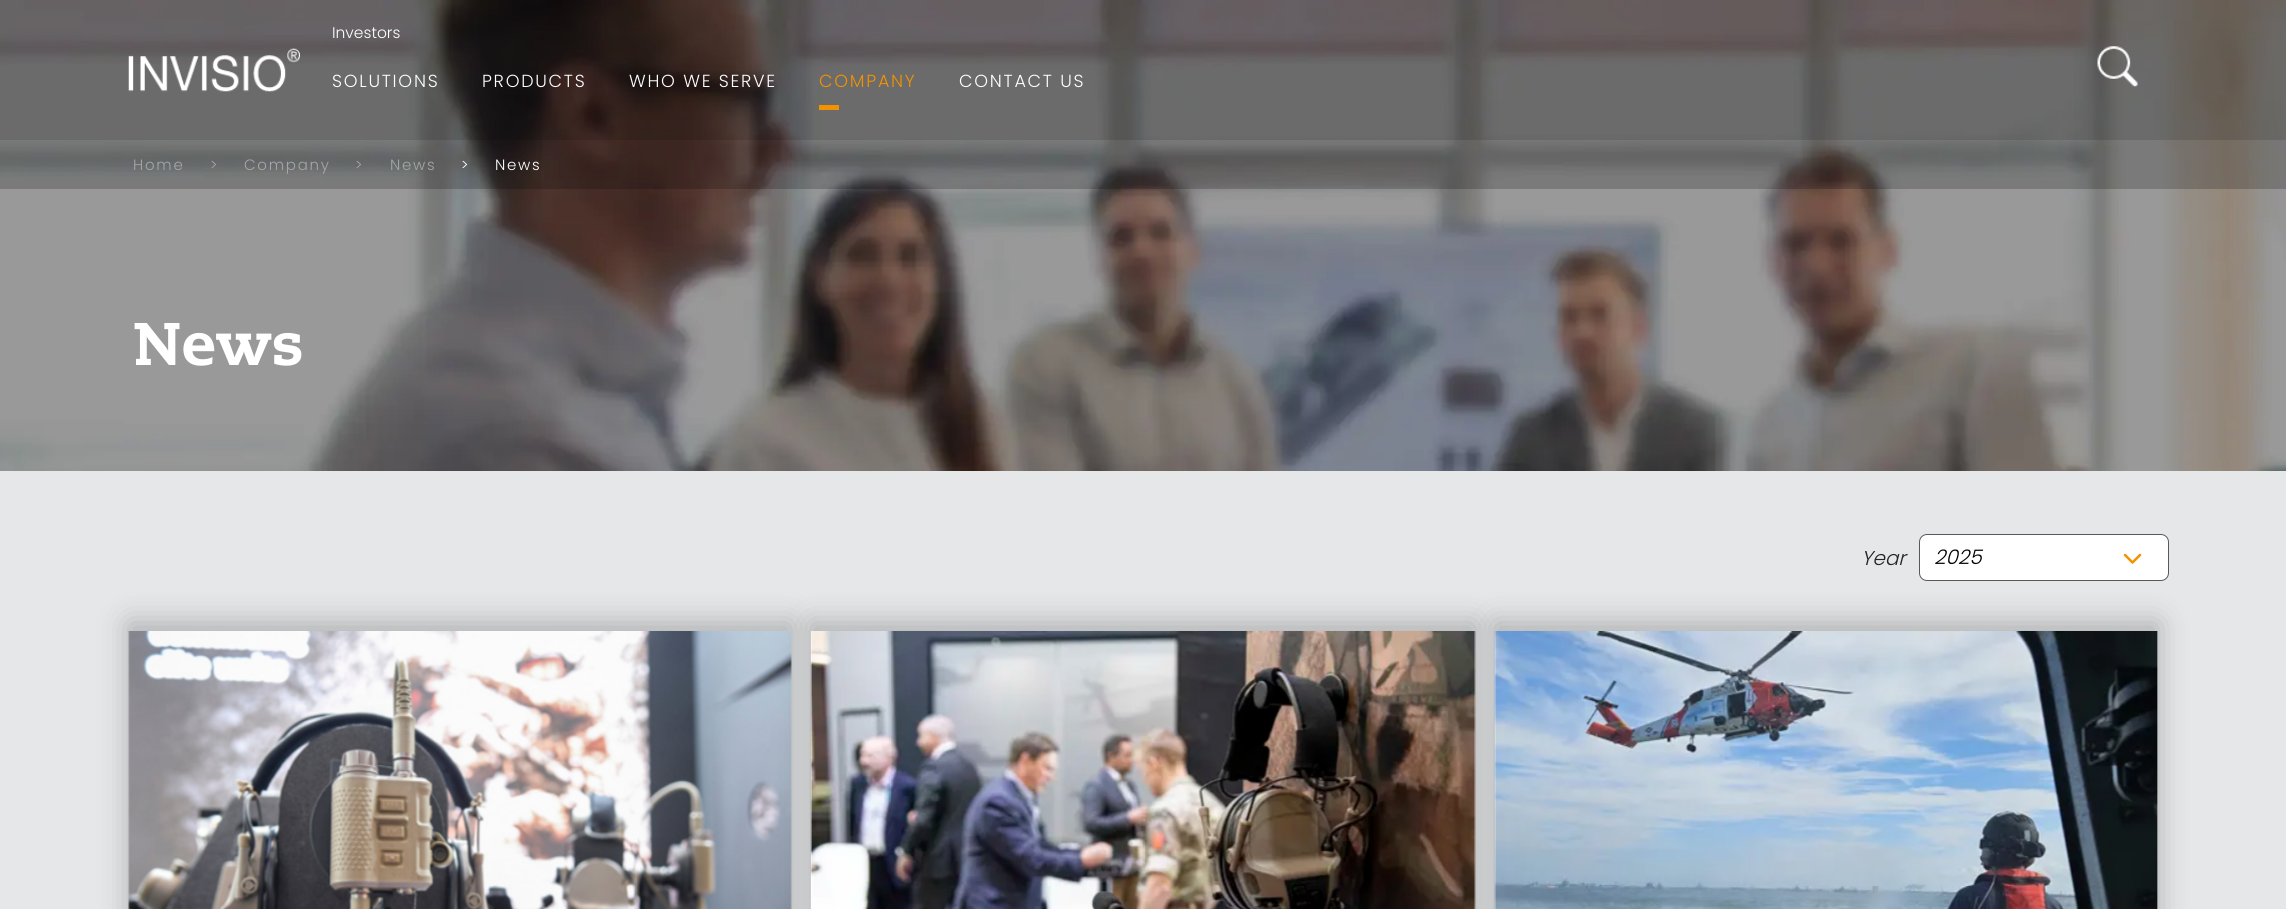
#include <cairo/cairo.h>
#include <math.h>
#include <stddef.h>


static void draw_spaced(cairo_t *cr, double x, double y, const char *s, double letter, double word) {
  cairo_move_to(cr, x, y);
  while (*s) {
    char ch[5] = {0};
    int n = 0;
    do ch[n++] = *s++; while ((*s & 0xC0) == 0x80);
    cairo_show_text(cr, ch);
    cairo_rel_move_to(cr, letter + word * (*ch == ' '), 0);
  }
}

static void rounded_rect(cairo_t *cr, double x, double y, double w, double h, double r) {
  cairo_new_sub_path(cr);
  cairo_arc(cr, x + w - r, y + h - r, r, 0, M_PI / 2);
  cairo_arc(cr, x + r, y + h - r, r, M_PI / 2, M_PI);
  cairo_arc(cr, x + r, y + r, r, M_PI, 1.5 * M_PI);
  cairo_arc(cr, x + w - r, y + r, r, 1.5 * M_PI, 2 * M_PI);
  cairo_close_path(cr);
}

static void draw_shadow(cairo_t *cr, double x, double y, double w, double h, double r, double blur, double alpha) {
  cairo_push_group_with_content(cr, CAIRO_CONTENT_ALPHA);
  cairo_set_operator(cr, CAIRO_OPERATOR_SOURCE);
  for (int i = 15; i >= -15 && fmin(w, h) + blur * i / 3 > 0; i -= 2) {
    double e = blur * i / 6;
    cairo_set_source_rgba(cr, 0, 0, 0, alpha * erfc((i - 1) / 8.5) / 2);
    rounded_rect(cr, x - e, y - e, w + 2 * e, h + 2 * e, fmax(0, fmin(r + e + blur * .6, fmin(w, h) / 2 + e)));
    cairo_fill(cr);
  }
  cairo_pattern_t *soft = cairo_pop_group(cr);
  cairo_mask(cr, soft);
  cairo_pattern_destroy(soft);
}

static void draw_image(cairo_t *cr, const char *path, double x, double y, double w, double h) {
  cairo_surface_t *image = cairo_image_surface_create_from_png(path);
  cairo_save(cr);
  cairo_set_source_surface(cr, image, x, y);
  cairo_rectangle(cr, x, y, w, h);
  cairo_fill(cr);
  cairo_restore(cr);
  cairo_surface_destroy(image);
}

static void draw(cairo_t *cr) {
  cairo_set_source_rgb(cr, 1, 1, 1);
  cairo_paint(cr);
  draw_image(cr, "images/1.png", 0, 0, 2286, 471);
  draw_image(cr, "images/2.png", 134, 323, 168, 43);
  cairo_set_source_rgba(cr, 0, 0, 0, 0.3);
  cairo_rectangle(cr, 0, 0, 2286, 140);
  cairo_fill(cr);
  draw_image(cr, "images/3.png", 128, 48, 172, 44);
  cairo_set_source_rgb(cr, 243 / 255.0, 146 / 255.0, 0);
  cairo_rectangle(cr, 819, 105, 20, 5);
  cairo_fill(cr);
  draw_image(cr, "images/4.png", 2097, 46, 41, 41);
  cairo_set_source_rgba(cr, 0, 0, 0, 0.2);
  cairo_rectangle(cr, 0, 140, 2286, 49);
  cairo_fill(cr);
  cairo_set_source_rgb(cr, 230 / 255.0, 231 / 255.0, 232 / 255.0);
  cairo_rectangle(cr, 0, 471, 2286, 438);
  cairo_fill(cr);
  cairo_set_source_rgb(cr, 0, 0, 0);
  draw_shadow(cr, 129, 623, 662, 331, 0, 15, 0.25);
  draw_image(cr, "images/5.png", 128, 631, 664, 278);
  draw_shadow(cr, 811, 623, 664, 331, 0, 15, 0.25);
  cairo_set_source_rgb(cr, 1, 1, 1);
  cairo_rectangle(cr, 811, 631, 664, 278);
  cairo_fill(cr);
  draw_image(cr, "images/6.png", 810, 631, 666, 278);
  cairo_set_source_rgb(cr, 0, 0, 0);
  draw_shadow(cr, 1495, 623, 663, 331, 0, 15, 0.25);
  cairo_set_source_rgb(cr, 1, 1, 1);
  rounded_rect(cr, 1919, 534, 250, 47, 8);
  cairo_fill(cr);
  cairo_new_path(cr);
  cairo_move_to(cr, 2125, 555);
  cairo_line_to(cr, 2132.5, 562.5);
  cairo_line_to(cr, 2140, 555);
  cairo_set_source_rgb(cr, 243 / 255.0, 146 / 255.0, 0);
  cairo_set_line_width(cr, 2.5);
  cairo_set_line_cap(cr, CAIRO_LINE_CAP_ROUND);
  cairo_set_line_join(cr, CAIRO_LINE_JOIN_ROUND);
  cairo_stroke(cr);
  rounded_rect(cr, 1919.5, 534.5, 249, 46, 7.5);
  cairo_set_source_rgb(cr, 88 / 255.0, 88 / 255.0, 91 / 255.0);
  cairo_set_line_width(cr, 1);
  cairo_set_line_cap(cr, CAIRO_LINE_CAP_BUTT);
  cairo_set_line_join(cr, CAIRO_LINE_JOIN_MITER);
  cairo_stroke(cr);
  cairo_set_source_rgb(cr, 1, 1, 1);
  cairo_rectangle(cr, 1495, 631, 663, 278);
  cairo_fill(cr);
  draw_image(cr, "images/7.png", 1494, 631, 664, 278);
  cairo_select_font_face(cr, "Poppins Light", CAIRO_FONT_SLANT_NORMAL, CAIRO_FONT_WEIGHT_NORMAL);
  cairo_set_font_size(cr, 15.5);
  cairo_move_to(cr, 332, 38);
  cairo_show_text(cr, "Investors");
  cairo_set_font_size(cr, 17.5);
  draw_spaced(cr, 332, 87, "SOLUTIONS", 1.75, 0);
  draw_spaced(cr, 482, 87, "PRODUCTS", 1.75, 0);
  draw_spaced(cr, 629, 87, "WHO WE SERVE", 1.75, 0);
  cairo_set_source_rgb(cr, 243 / 255.0, 146 / 255.0, 0);
  draw_spaced(cr, 819, 87, "COMPANY", 1.75, 0);
  cairo_set_source_rgb(cr, 1, 1, 1);
  draw_spaced(cr, 959, 87, "CONTACT US", 1.75, 0);
  cairo_set_font_size(cr, 15);
  cairo_set_source_rgb(cr, 165 / 255.0, 166 / 255.0, 167 / 255.0);
  draw_spaced(cr, 133, 170, "Home", 1.75, 0);
  draw_spaced(cr, 210, 170, ">", 1.75, 0);
  draw_spaced(cr, 244, 170, "Company", 1.75, 0);
  draw_spaced(cr, 355, 170, ">", 1.75, 0);
  draw_spaced(cr, 390, 170, "News", 1.75, 0);
  cairo_set_source_rgb(cr, 1, 1, 1);
  draw_spaced(cr, 461, 170, ">", 1.75, 0);
  draw_spaced(cr, 495, 170, "News", 1.75, 0);
  cairo_select_font_face(cr, "Poppins Light", CAIRO_FONT_SLANT_ITALIC, CAIRO_FONT_WEIGHT_NORMAL);
  cairo_set_font_size(cr, 20);
  cairo_set_source_rgb(cr, 33 / 255.0, 37 / 255.0, 41 / 255.0);
  cairo_move_to(cr, 1861, 565);
  cairo_show_text(cr, "Year");
  cairo_set_source_rgb(cr, 0, 0, 0);
  cairo_move_to(cr, 1934, 564);
  cairo_show_text(cr, "2025");
}

int main(void) {
  cairo_surface_t *surface = cairo_image_surface_create(CAIRO_FORMAT_RGB24, 2286, 909);
  cairo_t *cr = cairo_create(surface);
  cairo_font_options_t *options = cairo_font_options_create();
  cairo_font_options_set_hint_metrics(options, CAIRO_HINT_METRICS_OFF);
  cairo_font_options_set_hint_style(options, CAIRO_HINT_STYLE_NONE);
  cairo_set_font_options(cr, options);
  cairo_set_miter_limit(cr, 4);
  draw(cr);
  cairo_surface_write_to_png(surface, "out.png");
  cairo_font_options_destroy(options);
  cairo_destroy(cr);
  cairo_surface_destroy(surface);
  return 0;
}
